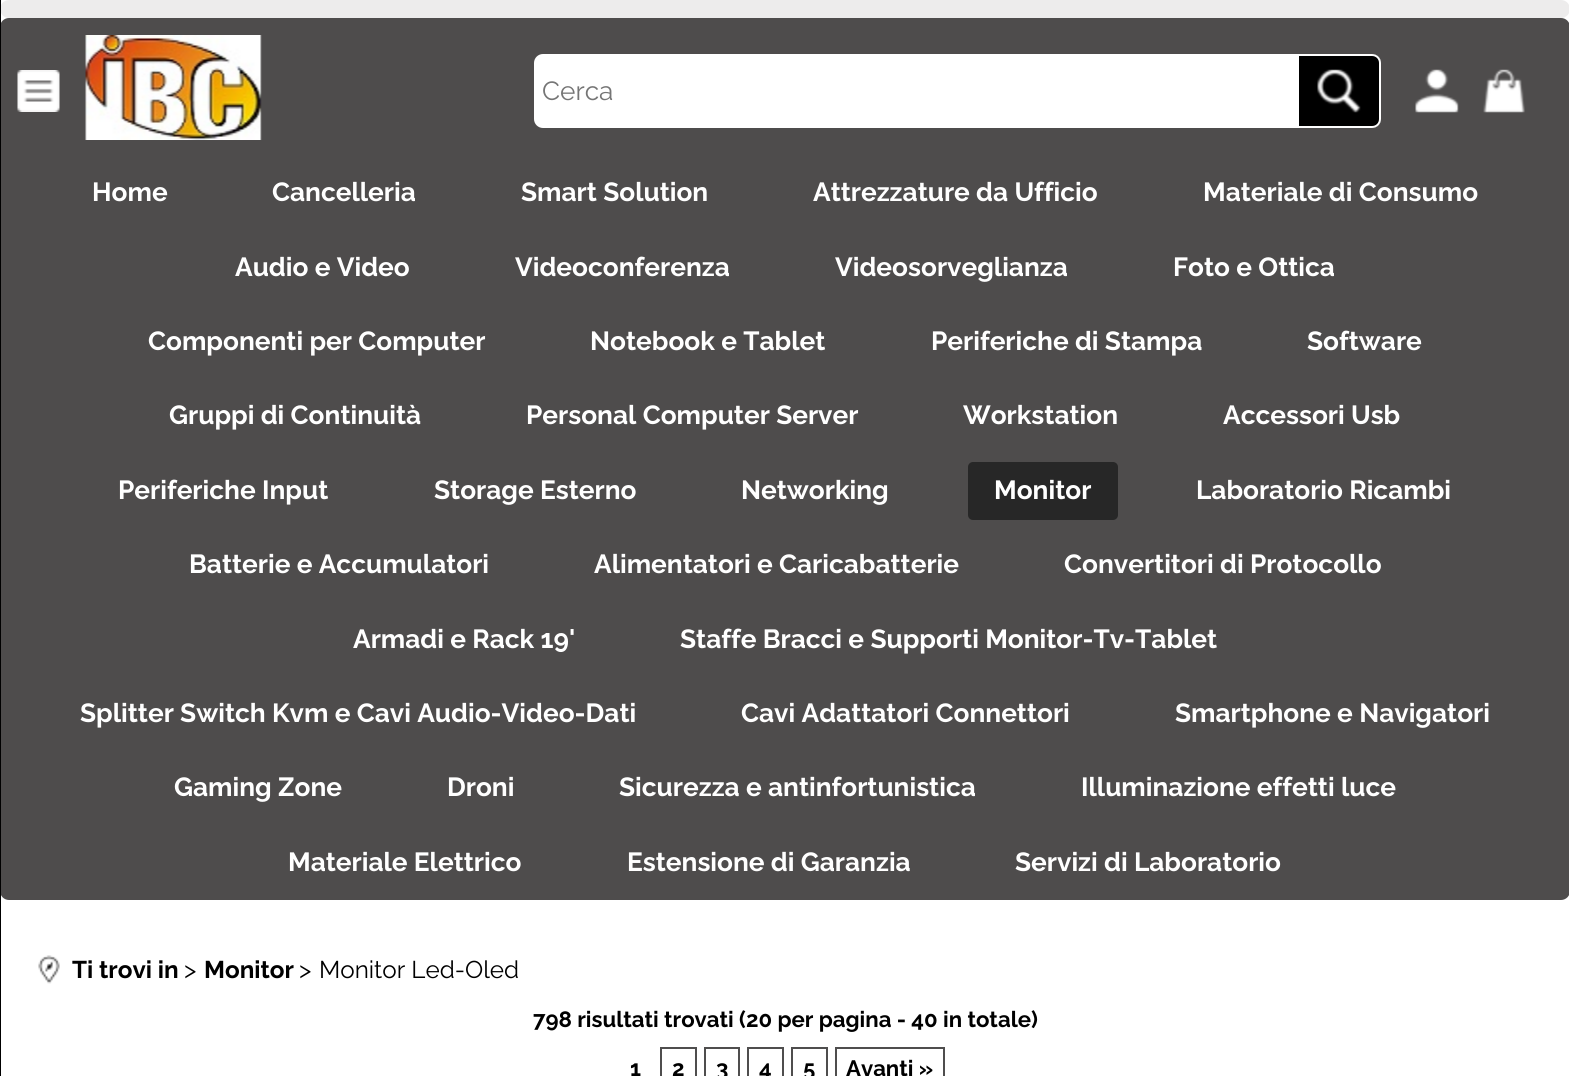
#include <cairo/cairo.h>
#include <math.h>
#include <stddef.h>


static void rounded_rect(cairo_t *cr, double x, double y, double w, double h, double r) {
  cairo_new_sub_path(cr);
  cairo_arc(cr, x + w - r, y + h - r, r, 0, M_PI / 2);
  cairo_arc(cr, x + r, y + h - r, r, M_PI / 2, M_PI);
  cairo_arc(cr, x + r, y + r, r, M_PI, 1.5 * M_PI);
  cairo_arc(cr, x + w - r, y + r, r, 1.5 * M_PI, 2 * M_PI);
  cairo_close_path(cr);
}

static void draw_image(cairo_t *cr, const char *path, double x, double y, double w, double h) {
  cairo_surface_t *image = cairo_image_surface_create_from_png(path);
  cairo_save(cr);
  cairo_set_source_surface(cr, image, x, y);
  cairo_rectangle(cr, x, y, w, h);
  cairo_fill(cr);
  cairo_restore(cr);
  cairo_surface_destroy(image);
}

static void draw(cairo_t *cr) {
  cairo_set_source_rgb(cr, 1, 1, 1);
  cairo_paint(cr);
  cairo_set_source_rgb(cr, 237 / 255.0, 236 / 255.0, 236 / 255.0);
  rounded_rect(cr, 0, 0, 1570, 18, 9);
  cairo_fill(cr);
  cairo_set_source_rgb(cr, 78 / 255.0, 76 / 255.0, 76 / 255.0);
  rounded_rect(cr, 0, 154, 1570, 746, 9);
  cairo_fill(cr);
  rounded_rect(cr, 0, 18, 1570, 147, 9);
  cairo_fill(cr);
  cairo_set_source_rgb(cr, 0, 0, 0);
  cairo_rectangle(cr, 0, 0, 1, 1076);
  cairo_fill(cr);
  draw_image(cr, "images/1.png", 17, 70, 43, 42);
  draw_image(cr, "images/2.png", 85, 35, 177, 105);
  cairo_set_source_rgb(cr, 1, 1, 1);
  rounded_rect(cr, 535, 55, 845, 72, 8);
  cairo_fill_preserve(cr);
  cairo_stroke(cr);
  cairo_set_source_rgb(cr, 0, 0, 0);
  cairo_new_path(cr);
  cairo_move_to(cr, 1299, 54);
  cairo_line_to(cr, 1372, 54);
  cairo_curve_to(cr, 1377, 54, 1381, 58, 1381, 63);
  cairo_line_to(cr, 1381, 119);
  cairo_curve_to(cr, 1381, 124, 1377, 128, 1372, 128);
  cairo_line_to(cr, 1299, 128);
  cairo_close_path(cr);
  cairo_fill(cr);
  draw_image(cr, "images/3.png", 1317, 69, 44, 44);
  cairo_set_source_rgb(cr, 1, 1, 1);
  cairo_set_fill_rule(cr, CAIRO_FILL_RULE_EVEN_ODD);
  cairo_new_path(cr);
  cairo_move_to(cr, 1298, 54);
  cairo_line_to(cr, 1372, 54);
  cairo_curve_to(cr, 1377, 54, 1381, 58, 1381, 63);
  cairo_line_to(cr, 1381, 119);
  cairo_curve_to(cr, 1381, 124, 1377, 128, 1372, 128);
  cairo_line_to(cr, 1298, 128);
  cairo_close_path(cr);
  cairo_move_to(cr, 1298, 56);
  cairo_line_to(cr, 1372, 56);
  cairo_curve_to(cr, 1376, 56, 1379, 59, 1379, 63);
  cairo_line_to(cr, 1379, 119);
  cairo_curve_to(cr, 1379, 123, 1376, 126, 1372, 126);
  cairo_line_to(cr, 1298, 126);
  cairo_close_path(cr);
  cairo_fill(cr);
  draw_image(cr, "images/4.png", 1415, 69, 44, 44);
  draw_image(cr, "images/5.png", 1483, 69, 42, 44);
  cairo_set_source_rgb(cr, 39 / 255.0, 39 / 255.0, 39 / 255.0);
  rounded_rect(cr, 968, 462, 150, 58, 5);
  cairo_fill(cr);
  draw_image(cr, "images/6.png", 38, 955, 22, 29);
  cairo_rectangle(cr, 661, 1048, 35, 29);
  cairo_set_source_rgb(cr, 79 / 255.0, 78 / 255.0, 78 / 255.0);
  cairo_stroke(cr);
  cairo_rectangle(cr, 705, 1048, 34, 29);
  cairo_stroke(cr);
  cairo_rectangle(cr, 748, 1048, 35, 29);
  cairo_stroke(cr);
  cairo_rectangle(cr, 792, 1048, 35, 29);
  cairo_stroke(cr);
  cairo_rectangle(cr, 836, 1048, 108, 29);
  cairo_stroke(cr);
  cairo_select_font_face(cr, "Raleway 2 Thin", CAIRO_FONT_SLANT_NORMAL, CAIRO_FONT_WEIGHT_NORMAL);
  cairo_set_font_size(cr, 26.25);
  cairo_set_source_rgb(cr, 117 / 255.0, 117 / 255.0, 117 / 255.0);
  cairo_move_to(cr, 542, 100);
  cairo_show_text(cr, "Cerca");
  cairo_select_font_face(cr, "Raleway Thin", CAIRO_FONT_SLANT_NORMAL, CAIRO_FONT_WEIGHT_NORMAL);
  cairo_set_source_rgb(cr, 1, 1, 1);
  cairo_move_to(cr, 92, 201);
  cairo_show_text(cr, "Home");
  cairo_move_to(cr, 272, 201);
  cairo_show_text(cr, "Cancelleria");
  cairo_move_to(cr, 521, 201);
  cairo_show_text(cr, "Smart Solution");
  cairo_move_to(cr, 813, 201);
  cairo_show_text(cr, "Attrezzature da Ufficio");
  cairo_move_to(cr, 1203, 201);
  cairo_show_text(cr, "Materiale di Consumo");
  cairo_move_to(cr, 235, 276);
  cairo_show_text(cr, "Audio e Video");
  cairo_move_to(cr, 515, 276);
  cairo_show_text(cr, "Videoconferenza");
  cairo_move_to(cr, 835, 276);
  cairo_show_text(cr, "Videosorveglianza");
  cairo_move_to(cr, 1173, 276);
  cairo_show_text(cr, "Foto e Ottica");
  cairo_move_to(cr, 148, 350);
  cairo_show_text(cr, "Componenti per Computer");
  cairo_move_to(cr, 590, 350);
  cairo_show_text(cr, "Notebook e Tablet");
  cairo_move_to(cr, 931, 350);
  cairo_show_text(cr, "Periferiche di Stampa");
  cairo_move_to(cr, 1307, 350);
  cairo_show_text(cr, "Software");
  cairo_move_to(cr, 169, 424);
  cairo_show_text(cr, "Gruppi di Continuità");
  cairo_move_to(cr, 526, 424);
  cairo_show_text(cr, "Personal Computer Server");
  cairo_move_to(cr, 963, 424);
  cairo_show_text(cr, "Workstation");
  cairo_move_to(cr, 1223, 424);
  cairo_show_text(cr, "Accessori Usb");
  cairo_move_to(cr, 118, 499);
  cairo_show_text(cr, "Periferiche Input");
  cairo_move_to(cr, 434, 499);
  cairo_show_text(cr, "Storage Esterno");
  cairo_move_to(cr, 741, 499);
  cairo_show_text(cr, "Networking");
  cairo_move_to(cr, 994, 499);
  cairo_show_text(cr, "Monitor");
  cairo_move_to(cr, 1196, 499);
  cairo_show_text(cr, "Laboratorio Ricambi");
  cairo_move_to(cr, 189, 573);
  cairo_show_text(cr, "Batterie e Accumulatori");
  cairo_move_to(cr, 594, 573);
  cairo_show_text(cr, "Alimentatori e Caricabatterie");
  cairo_move_to(cr, 1064, 573);
  cairo_show_text(cr, "Convertitori di Protocollo");
  cairo_move_to(cr, 353, 648);
  cairo_show_text(cr, "Armadi e Rack 19'");
  cairo_move_to(cr, 680, 648);
  cairo_show_text(cr, "Staffe Bracci e Supporti Monitor-Tv-Tablet");
  cairo_move_to(cr, 80, 722);
  cairo_show_text(cr, "Splitter Switch Kvm e Cavi Audio-Video-Dati");
  cairo_move_to(cr, 741, 722);
  cairo_show_text(cr, "Cavi Adattatori Connettori");
  cairo_move_to(cr, 1175, 722);
  cairo_show_text(cr, "Smartphone e Navigatori");
  cairo_move_to(cr, 174, 796);
  cairo_show_text(cr, "Gaming Zone");
  cairo_move_to(cr, 447, 796);
  cairo_show_text(cr, "Droni");
  cairo_move_to(cr, 619, 796);
  cairo_show_text(cr, "Sicurezza e antinfortunistica");
  cairo_move_to(cr, 1081, 796);
  cairo_show_text(cr, "Illuminazione effetti luce");
  cairo_move_to(cr, 288, 871);
  cairo_show_text(cr, "Materiale Elettrico");
  cairo_move_to(cr, 627, 871);
  cairo_show_text(cr, "Estensione di Garanzia");
  cairo_move_to(cr, 1015, 871);
  cairo_show_text(cr, "Servizi di Laboratorio");
  cairo_set_font_size(cr, 24.25);
  cairo_set_source_rgb(cr, 0, 0, 0);
  cairo_move_to(cr, 72, 978);
  cairo_show_text(cr, "Ti trovi in");
  cairo_select_font_face(cr, "Raleway 2 Thin", CAIRO_FONT_SLANT_NORMAL, CAIRO_FONT_WEIGHT_NORMAL);
  cairo_move_to(cr, 184, 978);
  cairo_show_text(cr, ">");
  cairo_select_font_face(cr, "Raleway Thin", CAIRO_FONT_SLANT_NORMAL, CAIRO_FONT_WEIGHT_NORMAL);
  cairo_move_to(cr, 204, 978);
  cairo_show_text(cr, "Monitor");
  cairo_select_font_face(cr, "Raleway 2 Thin", CAIRO_FONT_SLANT_NORMAL, CAIRO_FONT_WEIGHT_NORMAL);
  cairo_move_to(cr, 299, 978);
  cairo_show_text(cr, ">");
  cairo_move_to(cr, 319, 978);
  cairo_show_text(cr, "Monitor Led-Oled");
  cairo_select_font_face(cr, "Raleway Thin", CAIRO_FONT_SLANT_NORMAL, CAIRO_FONT_WEIGHT_NORMAL);
  cairo_set_font_size(cr, 22.2);
  cairo_move_to(cr, 533, 1027);
  cairo_show_text(cr, "798 risultati trovati (20 per pagina - 40 in totale)");
  cairo_move_to(cr, 630, 1076);
  cairo_show_text(cr, "1");
  cairo_move_to(cr, 672, 1076);
  cairo_show_text(cr, "2");
  cairo_move_to(cr, 716, 1076);
  cairo_show_text(cr, "3");
  cairo_move_to(cr, 759, 1076);
  cairo_show_text(cr, "4");
  cairo_move_to(cr, 803, 1076);
  cairo_show_text(cr, "5");
  cairo_move_to(cr, 846, 1076);
  cairo_show_text(cr, "Avanti »");
}

int main(void) {
  cairo_surface_t *surface = cairo_image_surface_create(CAIRO_FORMAT_RGB24, 1569, 1076);
  cairo_t *cr = cairo_create(surface);
  cairo_font_options_t *options = cairo_font_options_create();
  cairo_font_options_set_hint_metrics(options, CAIRO_HINT_METRICS_OFF);
  cairo_font_options_set_hint_style(options, CAIRO_HINT_STYLE_NONE);
  cairo_set_font_options(cr, options);
  cairo_set_miter_limit(cr, 4);
  draw(cr);
  cairo_surface_write_to_png(surface, "out.png");
  cairo_font_options_destroy(options);
  cairo_destroy(cr);
  cairo_surface_destroy(surface);
  return 0;
}
